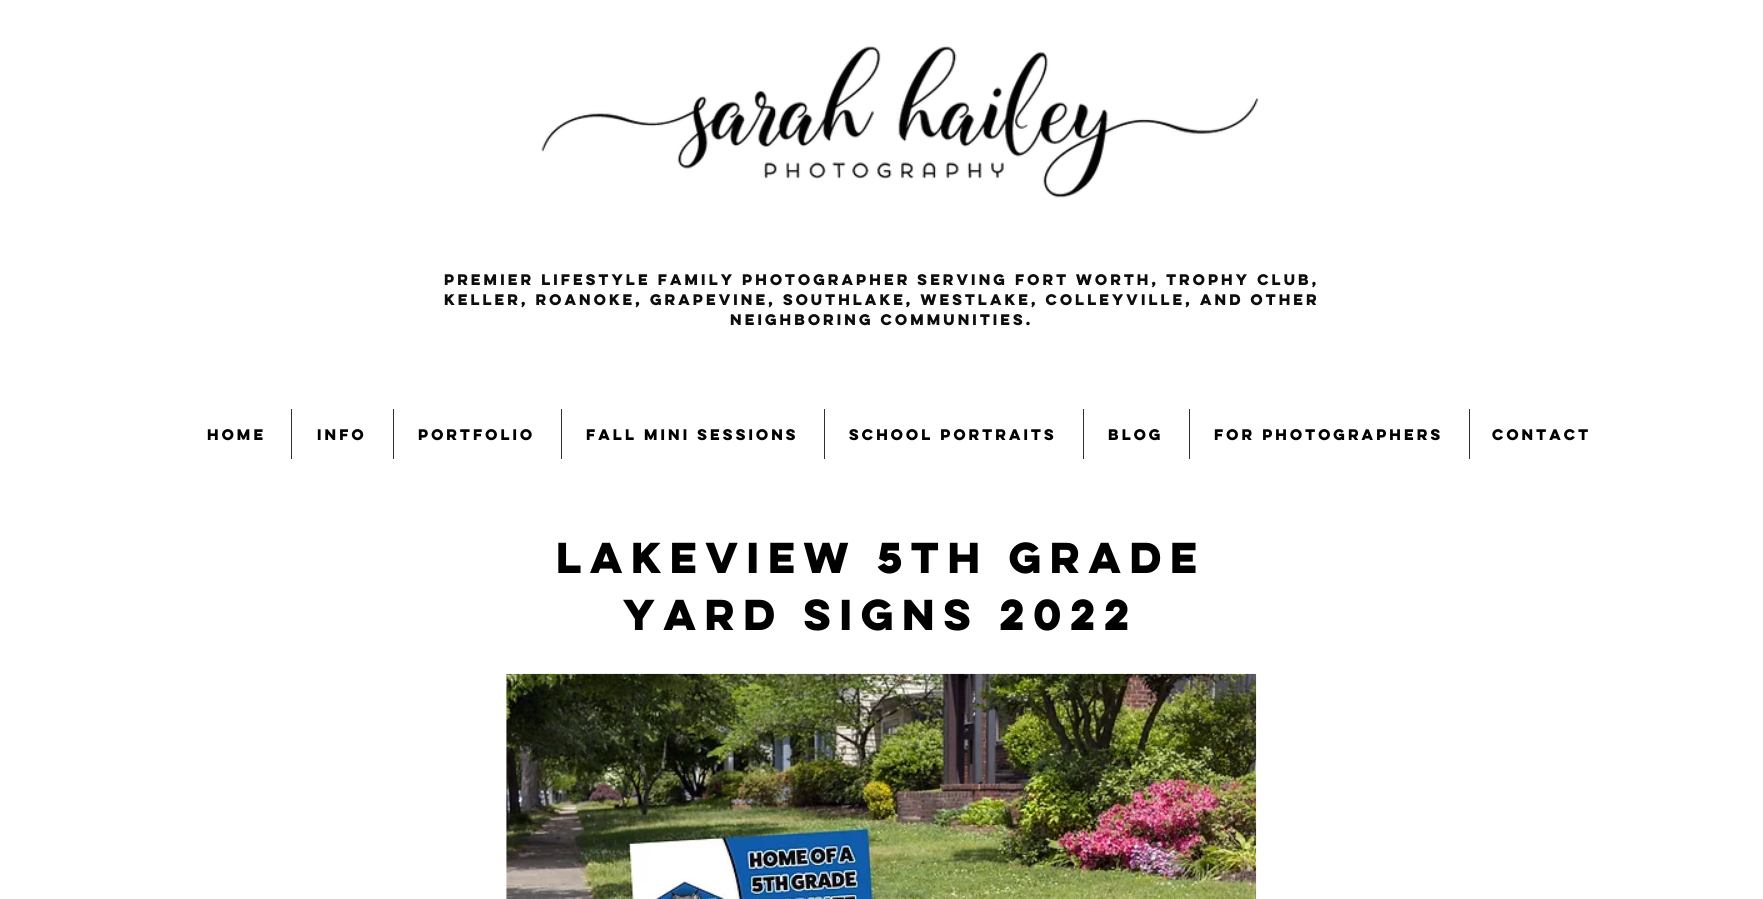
#include <cairo/cairo.h>
#include <math.h>
#include <stddef.h>


static void draw_image(cairo_t *cr, const char *path, double x, double y, double w, double h) {
  cairo_surface_t *image = cairo_image_surface_create_from_png(path);
  cairo_save(cr);
  cairo_set_source_surface(cr, image, x, y);
  cairo_rectangle(cr, x, y, w, h);
  cairo_fill(cr);
  cairo_restore(cr);
  cairo_surface_destroy(image);
}

static void draw(cairo_t *cr) {
  cairo_set_source_rgb(cr, 1, 1, 1);
  cairo_paint(cr);
  draw_image(cr, "images/1.png", 541, 46, 718, 152);
  cairo_set_source_rgb(cr, 49 / 255.0, 49 / 255.0, 49 / 255.0);
  cairo_rectangle(cr, 291, 409, 1, 50);
  cairo_fill(cr);
  cairo_rectangle(cr, 393, 409, 1, 50);
  cairo_fill(cr);
  cairo_rectangle(cr, 561, 409, 1, 50);
  cairo_fill(cr);
  cairo_rectangle(cr, 824, 409, 1, 50);
  cairo_fill(cr);
  cairo_rectangle(cr, 1083, 409, 1, 50);
  cairo_fill(cr);
  cairo_rectangle(cr, 1189, 409, 1, 50);
  cairo_fill(cr);
  cairo_rectangle(cr, 1469, 409, 1, 50);
  cairo_fill(cr);
  draw_image(cr, "images/2.png", 506, 673, 751, 226);
  cairo_select_font_face(cr, "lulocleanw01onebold", CAIRO_FONT_SLANT_NORMAL, CAIRO_FONT_WEIGHT_BOLD);
  cairo_set_font_size(cr, 13.75);
  cairo_set_source_rgb(cr, 13 / 255.0, 13 / 255.0, 12 / 255.0);
  cairo_move_to(cr, 444, 285);
  cairo_show_text(cr, "Premier lifestyle family photographer serving Fort Worth, Trophy Club,");
  cairo_move_to(cr, 444, 305);
  cairo_show_text(cr, "Keller, Roanoke, Grapevine, Southlake, Westlake, Colleyville, and other");
  cairo_move_to(cr, 730, 325);
  cairo_show_text(cr, "neighboring communities.");
  cairo_set_source_rgb(cr, 0, 0, 0);
  cairo_move_to(cr, 207, 440);
  cairo_show_text(cr, "home");
  cairo_move_to(cr, 317, 440);
  cairo_show_text(cr, "info");
  cairo_move_to(cr, 418, 440);
  cairo_show_text(cr, "portfolio");
  cairo_move_to(cr, 586, 440);
  cairo_show_text(cr, "fall mini sessions");
  cairo_move_to(cr, 849, 440);
  cairo_show_text(cr, "school portraits");
  cairo_move_to(cr, 1108, 440);
  cairo_show_text(cr, "blog");
  cairo_move_to(cr, 1214, 440);
  cairo_show_text(cr, "for photographers");
  cairo_move_to(cr, 1492, 440);
  cairo_show_text(cr, "contact");
  cairo_set_font_size(cr, 38.75);
  cairo_move_to(cr, 556, 573);
  cairo_show_text(cr, "Lakeview 5th grade");
  cairo_move_to(cr, 623, 630);
  cairo_show_text(cr, "YARD SIGNS 2022");
}

int main(void) {
  cairo_surface_t *surface = cairo_image_surface_create(CAIRO_FORMAT_RGB24, 1763, 899);
  cairo_t *cr = cairo_create(surface);
  cairo_font_options_t *options = cairo_font_options_create();
  cairo_font_options_set_hint_metrics(options, CAIRO_HINT_METRICS_OFF);
  cairo_font_options_set_hint_style(options, CAIRO_HINT_STYLE_NONE);
  cairo_set_font_options(cr, options);
  cairo_set_miter_limit(cr, 4);
  draw(cr);
  cairo_surface_write_to_png(surface, "out.png");
  cairo_font_options_destroy(options);
  cairo_destroy(cr);
  cairo_surface_destroy(surface);
  return 0;
}
